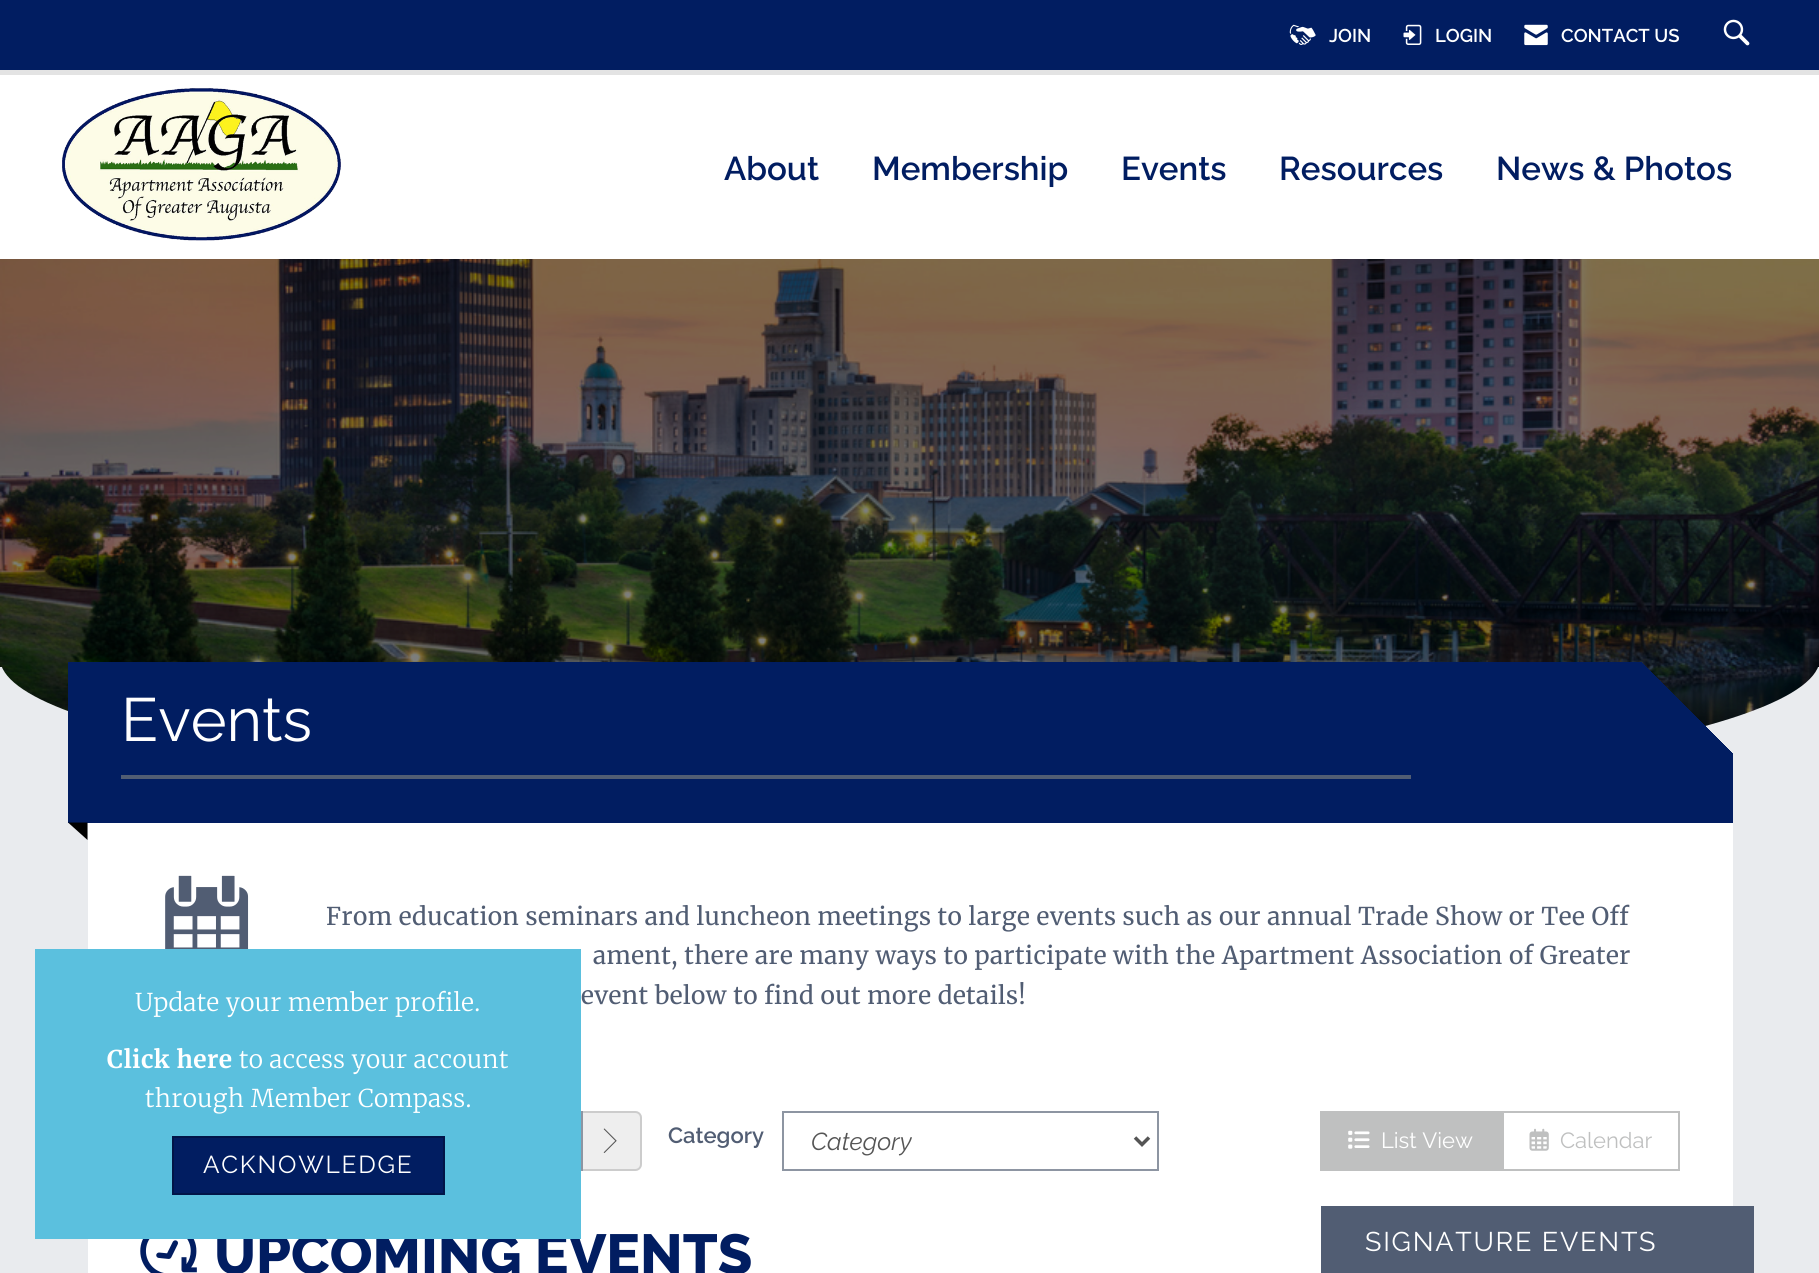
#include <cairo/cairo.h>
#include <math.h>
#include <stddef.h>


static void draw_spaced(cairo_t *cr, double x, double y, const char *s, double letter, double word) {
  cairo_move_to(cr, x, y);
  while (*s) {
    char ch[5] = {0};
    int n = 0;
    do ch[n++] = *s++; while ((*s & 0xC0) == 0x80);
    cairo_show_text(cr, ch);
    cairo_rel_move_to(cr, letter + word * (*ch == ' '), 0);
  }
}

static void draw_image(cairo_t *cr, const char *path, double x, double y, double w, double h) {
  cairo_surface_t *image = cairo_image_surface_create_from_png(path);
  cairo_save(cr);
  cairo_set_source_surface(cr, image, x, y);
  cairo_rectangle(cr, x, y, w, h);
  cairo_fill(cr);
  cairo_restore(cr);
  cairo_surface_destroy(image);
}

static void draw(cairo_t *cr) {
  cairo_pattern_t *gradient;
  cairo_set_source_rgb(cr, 233 / 255.0, 235 / 255.0, 238 / 255.0);
  cairo_paint(cr);
  cairo_set_source_rgb(cr, 1, 1, 1);
  cairo_rectangle(cr, 0, 75, 1819, 184);
  cairo_fill(cr);
  cairo_set_source_rgb(cr, 227 / 255.0, 227 / 255.0, 227 / 255.0);
  cairo_rectangle(cr, 0, 70, 1819, 5);
  cairo_fill(cr);
  cairo_set_source_rgb(cr, 1 / 255.0, 29 / 255.0, 97 / 255.0);
  cairo_rectangle(cr, 0, 0, 1819, 70);
  cairo_fill(cr);
  draw_image(cr, "images/1.png", 1289, 24, 27, 21);
  draw_image(cr, "images/2.png", 1403, 24, 19, 21);
  draw_image(cr, "images/3.png", 1524, 24, 24, 22);
  draw_image(cr, "images/4.png", 1723, 19, 27, 27);
  draw_image(cr, "images/5.png", 62, 88, 279, 153);
  draw_image(cr, "images/6.png", 0, 259, 1819, 467);
  cairo_save(cr);
  cairo_rectangle(cr, 0, 667, 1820, 175);
  cairo_clip(cr);
  cairo_set_source_rgb(cr, 233 / 255.0, 235 / 255.0, 238 / 255.0);
  cairo_set_fill_rule(cr, CAIRO_FILL_RULE_EVEN_ODD);
  cairo_new_path(cr);
  cairo_move_to(cr, 910, 308);
  cairo_curve_to(cr, 175, 308, -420, 559, -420, 868);
  cairo_curve_to(cr, -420, 1177, 175, 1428, 910, 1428);
  cairo_curve_to(cr, 1645, 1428, 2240, 1177, 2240, 868);
  cairo_curve_to(cr, 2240, 559, 1645, 308, 910, 308);
  cairo_close_path(cr);
  cairo_move_to(cr, 910, 518);
  cairo_curve_to(cr, 407, 518, 0, 581, 0, 658);
  cairo_curve_to(cr, 0, 735, 407, 798, 910, 798);
  cairo_curve_to(cr, 1413, 798, 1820, 735, 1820, 658);
  cairo_curve_to(cr, 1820, 581, 1413, 518, 910, 518);
  cairo_close_path(cr);
  cairo_fill(cr);
  cairo_restore(cr);
  gradient = cairo_pattern_create_linear(1357, 286, 444, 1198);
  cairo_pattern_add_color_stop_rgba(gradient, 0.05, 1 / 255.0, 29 / 255.0, 97 / 255.0, 0);
  cairo_pattern_add_color_stop_rgba(gradient, 0.05, 1 / 255.0, 29 / 255.0, 97 / 255.0, 1);
  cairo_pattern_add_color_stop_rgba(gradient, 1, 1 / 255.0, 29 / 255.0, 97 / 255.0, 1);
  cairo_set_source(cr, gradient);
  cairo_pattern_destroy(gradient);
  cairo_rectangle(cr, 68, 662, 1665, 161);
  cairo_fill(cr);
  cairo_set_source_rgb(cr, 81 / 255.0, 93 / 255.0, 115 / 255.0);
  cairo_rectangle(cr, 121, 775, 1290, 4);
  cairo_fill(cr);
  cairo_set_source_rgb(cr, 0, 0, 0);
  cairo_new_path(cr);
  cairo_move_to(cr, 68, 822.5);
  cairo_line_to(cr, 87.5, 822.5);
  cairo_line_to(cr, 87.5, 840);
  cairo_close_path(cr);
  cairo_fill(cr);
  cairo_set_source_rgb(cr, 1, 1, 1);
  cairo_rectangle(cr, 88, 823, 1645, 450);
  cairo_fill(cr);
  draw_image(cr, "images/7.png", 165, 875, 84, 74);
  cairo_rectangle(cr, 232, 1112, 350, 58);
  cairo_set_source_rgb(cr, 141 / 255.0, 149 / 255.0, 162 / 255.0);
  cairo_stroke(cr);
  cairo_set_source_rgb(cr, 238 / 255.0, 238 / 255.0, 238 / 255.0);
  cairo_new_path(cr);
  cairo_move_to(cr, 583, 1111);
  cairo_line_to(cr, 635, 1111);
  cairo_curve_to(cr, 639, 1111, 642, 1114, 642, 1118);
  cairo_line_to(cr, 642, 1164);
  cairo_curve_to(cr, 642, 1168, 639, 1171, 635, 1171);
  cairo_line_to(cr, 583, 1171);
  cairo_close_path(cr);
  cairo_fill(cr);
  cairo_set_source_rgb(cr, 204 / 255.0, 204 / 255.0, 204 / 255.0);
  cairo_set_fill_rule(cr, CAIRO_FILL_RULE_EVEN_ODD);
  cairo_new_path(cr);
  cairo_move_to(cr, 583, 1111);
  cairo_line_to(cr, 635, 1111);
  cairo_curve_to(cr, 639, 1111, 642, 1114, 642, 1118);
  cairo_line_to(cr, 642, 1164);
  cairo_curve_to(cr, 642, 1168, 639, 1171, 635, 1171);
  cairo_line_to(cr, 583, 1171);
  cairo_close_path(cr);
  cairo_move_to(cr, 583, 1113);
  cairo_line_to(cr, 635, 1113);
  cairo_curve_to(cr, 638, 1113, 640, 1115, 640, 1118);
  cairo_line_to(cr, 640, 1164);
  cairo_curve_to(cr, 640, 1167, 638, 1169, 635, 1169);
  cairo_line_to(cr, 583, 1169);
  cairo_close_path(cr);
  cairo_fill(cr);
  draw_image(cr, "images/8.png", 603, 1128, 14, 25);
  cairo_rectangle(cr, 783, 1112, 375, 58);
  cairo_set_source_rgb(cr, 141 / 255.0, 149 / 255.0, 162 / 255.0);
  cairo_stroke(cr);
  cairo_new_path(cr);
  cairo_move_to(cr, 1135, 1137.5);
  cairo_line_to(cr, 1142, 1144.5);
  cairo_line_to(cr, 1149, 1137.5);
  cairo_set_source_rgb(cr, 85 / 255.0, 85 / 255.0, 85 / 255.0);
  cairo_set_line_width(cr, 3.5);
  cairo_stroke(cr);
  cairo_set_source_rgb(cr, 191 / 255.0, 192 / 255.0, 192 / 255.0);
  cairo_rectangle(cr, 1320, 1111, 182, 60);
  cairo_fill(cr);
  draw_image(cr, "images/9.png", 1348, 1130, 22, 19);
  cairo_rectangle(cr, 1503, 1112, 176, 58);
  cairo_set_line_width(cr, 2);
  cairo_stroke(cr);
  draw_image(cr, "images/10.png", 1529, 1128, 20, 23);
  draw_image(cr, "images/11.png", 140, 1239, 57, 34);
  cairo_set_source_rgb(cr, 81 / 255.0, 93 / 255.0, 115 / 255.0);
  cairo_rectangle(cr, 1321, 1206, 433, 67);
  cairo_fill(cr);
  cairo_select_font_face(cr, "Raleway SemiBold", CAIRO_FONT_SLANT_NORMAL, CAIRO_FONT_WEIGHT_NORMAL);
  cairo_set_font_size(cr, 18.5);
  cairo_set_source_rgb(cr, 1, 1, 1);
  cairo_move_to(cr, 1329, 42);
  cairo_show_text(cr, "JOIN");
  cairo_move_to(cr, 1435, 42);
  cairo_show_text(cr, "LOGIN");
  cairo_move_to(cr, 1561, 42);
  cairo_show_text(cr, "CONTACT US");
  cairo_set_font_size(cr, 33);
  cairo_set_source_rgb(cr, 1 / 255.0, 29 / 255.0, 97 / 255.0);
  cairo_move_to(cr, 724, 180);
  cairo_show_text(cr, "About");
  cairo_move_to(cr, 872, 180);
  cairo_show_text(cr, "Membership");
  cairo_move_to(cr, 1121, 180);
  cairo_show_text(cr, "Events");
  cairo_move_to(cr, 1279, 180);
  cairo_show_text(cr, "Resources");
  cairo_move_to(cr, 1496, 180);
  cairo_show_text(cr, "News & Photos");
  cairo_select_font_face(cr, "Raleway", CAIRO_FONT_SLANT_NORMAL, CAIRO_FONT_WEIGHT_NORMAL);
  cairo_set_font_size(cr, 61);
  cairo_set_source_rgb(cr, 1, 1, 1);
  cairo_move_to(cr, 121, 741);
  cairo_show_text(cr, "Events");
  cairo_select_font_face(cr, "Merriweather", CAIRO_FONT_SLANT_NORMAL, CAIRO_FONT_WEIGHT_NORMAL);
  cairo_set_font_size(cr, 24.5);
  cairo_set_source_rgb(cr, 81 / 255.0, 93 / 255.0, 115 / 255.0);
  draw_spaced(cr, 326, 925, "From education seminars and luncheon meetings to large events such as our annual Trade Show or Tee Off", 0.44, 0);
  draw_spaced(cr, 593, 964, "ament, there are many ways to participate with the Apartment Association of Greater", 0.44, 0);
  draw_spaced(cr, 581, 1004, "event below to find out more details!", 0.44, 0);
  cairo_select_font_face(cr, "Raleway SemiBold", CAIRO_FONT_SLANT_NORMAL, CAIRO_FONT_WEIGHT_NORMAL);
  cairo_set_font_size(cr, 22);
  cairo_move_to(cr, 668, 1143);
  cairo_show_text(cr, "Category");
  cairo_select_font_face(cr, "Raleway", CAIRO_FONT_SLANT_ITALIC, CAIRO_FONT_WEIGHT_NORMAL);
  cairo_set_font_size(cr, 24.5);
  cairo_set_source_rgb(cr, 85 / 255.0, 85 / 255.0, 85 / 255.0);
  cairo_move_to(cr, 811, 1150);
  cairo_show_text(cr, "Category");
  cairo_select_font_face(cr, "Raleway", CAIRO_FONT_SLANT_NORMAL, CAIRO_FONT_WEIGHT_NORMAL);
  cairo_set_font_size(cr, 22);
  cairo_set_source_rgb(cr, 1, 1, 1);
  cairo_move_to(cr, 1381, 1148);
  cairo_show_text(cr, "List View");
  cairo_set_source_rgb(cr, 191 / 255.0, 192 / 255.0, 192 / 255.0);
  cairo_move_to(cr, 1560, 1148);
  cairo_show_text(cr, "Calendar");
  cairo_select_font_face(cr, "Raleway ExtraBold", CAIRO_FONT_SLANT_NORMAL, CAIRO_FONT_WEIGHT_NORMAL);
  cairo_set_font_size(cr, 56.25);
  cairo_set_source_rgb(cr, 1 / 255.0, 29 / 255.0, 97 / 255.0);
  cairo_move_to(cr, 214, 1274);
  cairo_show_text(cr, "UPCOMING EVENTS");
  cairo_select_font_face(cr, "Raleway", CAIRO_FONT_SLANT_NORMAL, CAIRO_FONT_WEIGHT_NORMAL);
  cairo_set_font_size(cr, 27);
  cairo_set_source_rgb(cr, 1, 1, 1);
  draw_spaced(cr, 1365, 1251, "SIGNATURE EVENTS", 1.75, 0);
  cairo_set_source_rgb(cr, 91 / 255.0, 192 / 255.0, 222 / 255.0);
  cairo_rectangle(cr, 35, 949, 546, 290);
  cairo_fill(cr);
  cairo_select_font_face(cr, "Merriweather Light", CAIRO_FONT_SLANT_NORMAL, CAIRO_FONT_WEIGHT_NORMAL);
  cairo_set_font_size(cr, 24.5);
  cairo_set_source_rgb(cr, 1, 1, 1);
  draw_spaced(cr, 135, 1011, "Update your member profile.", 0.44, 0);
  cairo_select_font_face(cr, "Merriweather", CAIRO_FONT_SLANT_NORMAL, CAIRO_FONT_WEIGHT_BOLD);
  draw_spaced(cr, 107, 1068, "Click here", 0.44, 0);
  cairo_select_font_face(cr, "Merriweather Light", CAIRO_FONT_SLANT_NORMAL, CAIRO_FONT_WEIGHT_NORMAL);
  draw_spaced(cr, 239, 1068, "to access your account", 0.44, 0);
  draw_spaced(cr, 145, 1107, "through Member Compass.", 0.44, 0);
  cairo_set_source_rgb(cr, 1 / 255.0, 29 / 255.0, 97 / 255.0);
  cairo_rectangle(cr, 173, 1137, 271, 57);
  cairo_fill_preserve(cr);
  cairo_set_source_rgb(cr, 1 / 255.0, 21 / 255.0, 72 / 255.0);
  cairo_stroke(cr);
  cairo_select_font_face(cr, "Raleway", CAIRO_FONT_SLANT_NORMAL, CAIRO_FONT_WEIGHT_NORMAL);
  cairo_set_source_rgb(cr, 1, 1, 1);
  draw_spaced(cr, 203, 1173, "ACKNOWLEDGE", 1.75, 0);
}

int main(void) {
  cairo_surface_t *surface = cairo_image_surface_create(CAIRO_FORMAT_RGB24, 1819, 1273);
  cairo_t *cr = cairo_create(surface);
  cairo_font_options_t *options = cairo_font_options_create();
  cairo_font_options_set_hint_metrics(options, CAIRO_HINT_METRICS_OFF);
  cairo_font_options_set_hint_style(options, CAIRO_HINT_STYLE_NONE);
  cairo_set_font_options(cr, options);
  cairo_set_miter_limit(cr, 4);
  draw(cr);
  cairo_surface_write_to_png(surface, "out.png");
  cairo_font_options_destroy(options);
  cairo_destroy(cr);
  cairo_surface_destroy(surface);
  return 0;
}
